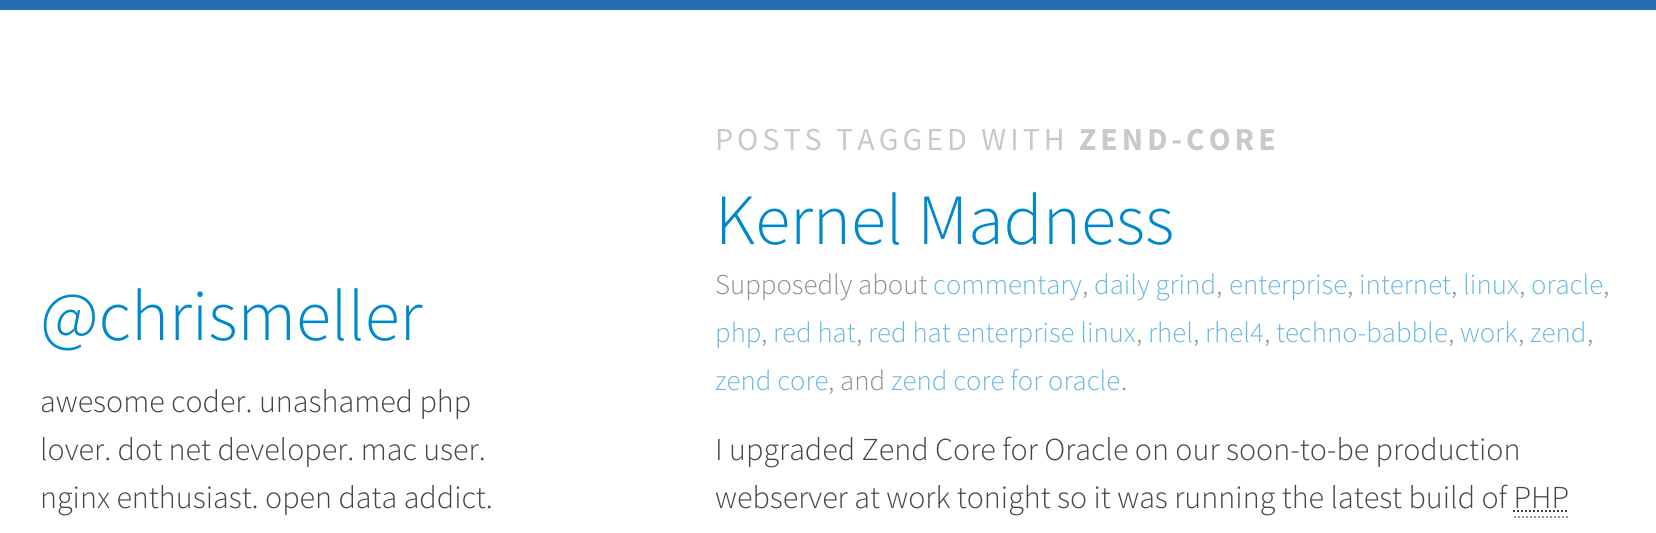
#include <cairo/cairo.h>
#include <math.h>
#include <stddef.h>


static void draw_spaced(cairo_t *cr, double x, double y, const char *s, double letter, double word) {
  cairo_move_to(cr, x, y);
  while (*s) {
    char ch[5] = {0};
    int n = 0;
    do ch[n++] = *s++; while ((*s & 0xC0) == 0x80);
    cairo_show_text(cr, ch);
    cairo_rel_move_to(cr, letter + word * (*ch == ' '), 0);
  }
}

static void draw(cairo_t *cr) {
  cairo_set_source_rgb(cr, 1, 1, 1);
  cairo_paint(cr);
  cairo_set_source_rgb(cr, 38 / 255.0, 109 / 255.0, 182 / 255.0);
  cairo_rectangle(cr, 0, 0, 1656, 10);
  cairo_fill(cr);
  cairo_new_path(cr);
  cairo_move_to(cr, 1513, 511);
  cairo_line_to(cr, 1569, 511);
  cairo_set_source_rgb(cr, 68 / 255.0, 68 / 255.0, 68 / 255.0);
  cairo_set_dash(cr, (double[]){2, 2}, 2, 0);
  cairo_stroke(cr);
  cairo_new_path(cr);
  cairo_move_to(cr, 1514, 517);
  cairo_line_to(cr, 1568, 517);
  cairo_set_source_rgb(cr, 153 / 255.0, 153 / 255.0, 153 / 255.0);
  cairo_stroke(cr);
  cairo_select_font_face(cr, "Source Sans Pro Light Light", CAIRO_FONT_SLANT_NORMAL, CAIRO_FONT_WEIGHT_NORMAL);
  cairo_set_font_size(cr, 72);
  cairo_set_source_rgb(cr, 0, 136 / 255.0, 204 / 255.0);
  cairo_move_to(cr, 40, 340);
  cairo_show_text(cr, "@chrismeller");
  cairo_set_font_size(cr, 32);
  cairo_set_source_rgb(cr, 68 / 255.0, 68 / 255.0, 68 / 255.0);
  cairo_move_to(cr, 40, 412);
  cairo_show_text(cr, "awesome coder. unashamed php");
  cairo_move_to(cr, 40, 460);
  cairo_show_text(cr, "lover. dot net developer. mac user.");
  cairo_move_to(cr, 40, 508);
  cairo_show_text(cr, "nginx enthusiast. open data addict.");
  cairo_select_font_face(cr, "Source Sans Pro", CAIRO_FONT_SLANT_NORMAL, CAIRO_FONT_WEIGHT_NORMAL);
  cairo_set_source_rgb(cr, 201 / 255.0, 201 / 255.0, 201 / 255.0);
  draw_spaced(cr, 715, 150, "POSTS TAGGED WITH", 4, 0);
  cairo_select_font_face(cr, "Source Sans Pro", CAIRO_FONT_SLANT_NORMAL, CAIRO_FONT_WEIGHT_BOLD);
  draw_spaced(cr, 1079, 150, "ZEND-CORE", 4, 0);
  cairo_select_font_face(cr, "Source Sans Pro Light Light", CAIRO_FONT_SLANT_NORMAL, CAIRO_FONT_WEIGHT_NORMAL);
  cairo_set_font_size(cr, 72);
  cairo_set_source_rgb(cr, 0, 136 / 255.0, 204 / 255.0);
  cairo_move_to(cr, 715, 244);
  cairo_show_text(cr, "Kernel Madness");
  cairo_set_font_size(cr, 28.75);
  cairo_set_source_rgb(cr, 143 / 255.0, 143 / 255.0, 143 / 255.0);
  cairo_move_to(cr, 715, 294);
  cairo_show_text(cr, "Supposedly about");
  cairo_set_source_rgb(cr, 102 / 255.0, 184 / 255.0, 224 / 255.0);
  cairo_move_to(cr, 933, 294);
  cairo_show_text(cr, "commentary");
  cairo_set_source_rgb(cr, 143 / 255.0, 143 / 255.0, 143 / 255.0);
  cairo_move_to(cr, 1082, 294);
  cairo_show_text(cr, ",");
  cairo_set_source_rgb(cr, 102 / 255.0, 184 / 255.0, 224 / 255.0);
  cairo_move_to(cr, 1094, 294);
  cairo_show_text(cr, "daily grind");
  cairo_set_source_rgb(cr, 143 / 255.0, 143 / 255.0, 143 / 255.0);
  cairo_move_to(cr, 1216, 294);
  cairo_show_text(cr, ",");
  cairo_set_source_rgb(cr, 102 / 255.0, 184 / 255.0, 224 / 255.0);
  cairo_move_to(cr, 1229, 294);
  cairo_show_text(cr, "enterprise");
  cairo_set_source_rgb(cr, 143 / 255.0, 143 / 255.0, 143 / 255.0);
  cairo_move_to(cr, 1347, 294);
  cairo_show_text(cr, ",");
  cairo_set_source_rgb(cr, 102 / 255.0, 184 / 255.0, 224 / 255.0);
  cairo_move_to(cr, 1359, 294);
  cairo_show_text(cr, "internet");
  cairo_set_source_rgb(cr, 143 / 255.0, 143 / 255.0, 143 / 255.0);
  cairo_move_to(cr, 1451, 294);
  cairo_show_text(cr, ",");
  cairo_set_source_rgb(cr, 102 / 255.0, 184 / 255.0, 224 / 255.0);
  cairo_move_to(cr, 1463, 294);
  cairo_show_text(cr, "linux");
  cairo_set_source_rgb(cr, 143 / 255.0, 143 / 255.0, 143 / 255.0);
  cairo_move_to(cr, 1519, 294);
  cairo_show_text(cr, ",");
  cairo_set_source_rgb(cr, 102 / 255.0, 184 / 255.0, 224 / 255.0);
  cairo_move_to(cr, 1531, 294);
  cairo_show_text(cr, "oracle");
  cairo_set_source_rgb(cr, 143 / 255.0, 143 / 255.0, 143 / 255.0);
  cairo_move_to(cr, 1603, 294);
  cairo_show_text(cr, ",");
  cairo_set_source_rgb(cr, 102 / 255.0, 184 / 255.0, 224 / 255.0);
  cairo_move_to(cr, 715, 342);
  cairo_show_text(cr, "php");
  cairo_set_source_rgb(cr, 143 / 255.0, 143 / 255.0, 143 / 255.0);
  cairo_move_to(cr, 761, 342);
  cairo_show_text(cr, ",");
  cairo_set_source_rgb(cr, 102 / 255.0, 184 / 255.0, 224 / 255.0);
  cairo_move_to(cr, 773, 342);
  cairo_show_text(cr, "red hat");
  cairo_set_source_rgb(cr, 143 / 255.0, 143 / 255.0, 143 / 255.0);
  cairo_move_to(cr, 856, 342);
  cairo_show_text(cr, ",");
  cairo_set_source_rgb(cr, 102 / 255.0, 184 / 255.0, 224 / 255.0);
  cairo_move_to(cr, 868, 342);
  cairo_show_text(cr, "red hat enterprise linux");
  cairo_set_source_rgb(cr, 143 / 255.0, 143 / 255.0, 143 / 255.0);
  cairo_move_to(cr, 1136, 342);
  cairo_show_text(cr, ",");
  cairo_set_source_rgb(cr, 102 / 255.0, 184 / 255.0, 224 / 255.0);
  cairo_move_to(cr, 1148, 342);
  cairo_show_text(cr, "rhel");
  cairo_set_source_rgb(cr, 143 / 255.0, 143 / 255.0, 143 / 255.0);
  cairo_move_to(cr, 1193, 342);
  cairo_show_text(cr, ",");
  cairo_set_source_rgb(cr, 102 / 255.0, 184 / 255.0, 224 / 255.0);
  cairo_move_to(cr, 1205, 342);
  cairo_show_text(cr, "rhel4");
  cairo_set_source_rgb(cr, 143 / 255.0, 143 / 255.0, 143 / 255.0);
  cairo_move_to(cr, 1264, 342);
  cairo_show_text(cr, ",");
  cairo_set_source_rgb(cr, 102 / 255.0, 184 / 255.0, 224 / 255.0);
  cairo_move_to(cr, 1276, 342);
  cairo_show_text(cr, "techno-babble");
  cairo_set_source_rgb(cr, 143 / 255.0, 143 / 255.0, 143 / 255.0);
  cairo_move_to(cr, 1448, 342);
  cairo_show_text(cr, ",");
  cairo_set_source_rgb(cr, 102 / 255.0, 184 / 255.0, 224 / 255.0);
  cairo_move_to(cr, 1460, 342);
  cairo_show_text(cr, "work");
  cairo_set_source_rgb(cr, 143 / 255.0, 143 / 255.0, 143 / 255.0);
  cairo_move_to(cr, 1518, 342);
  cairo_show_text(cr, ",");
  cairo_set_source_rgb(cr, 102 / 255.0, 184 / 255.0, 224 / 255.0);
  cairo_move_to(cr, 1530, 342);
  cairo_show_text(cr, "zend");
  cairo_set_source_rgb(cr, 143 / 255.0, 143 / 255.0, 143 / 255.0);
  cairo_move_to(cr, 1587, 342);
  cairo_show_text(cr, ",");
  cairo_set_source_rgb(cr, 102 / 255.0, 184 / 255.0, 224 / 255.0);
  cairo_move_to(cr, 715, 390);
  cairo_show_text(cr, "zend core");
  cairo_set_source_rgb(cr, 143 / 255.0, 143 / 255.0, 143 / 255.0);
  cairo_move_to(cr, 828, 390);
  cairo_show_text(cr, ", and");
  cairo_set_source_rgb(cr, 102 / 255.0, 184 / 255.0, 224 / 255.0);
  cairo_move_to(cr, 891, 390);
  cairo_show_text(cr, "zend core for oracle");
  cairo_set_source_rgb(cr, 143 / 255.0, 143 / 255.0, 143 / 255.0);
  cairo_move_to(cr, 1121, 390);
  cairo_show_text(cr, ".");
  cairo_set_font_size(cr, 32);
  cairo_set_source_rgb(cr, 68 / 255.0, 68 / 255.0, 68 / 255.0);
  cairo_move_to(cr, 715, 460);
  cairo_show_text(cr, "I upgraded Zend Core for Oracle on our soon-to-be production");
  cairo_move_to(cr, 715, 508);
  cairo_show_text(cr, "webserver at work tonight so it was running the latest build of PHP");
}

int main(void) {
  cairo_surface_t *surface = cairo_image_surface_create(CAIRO_FORMAT_RGB24, 1656, 533);
  cairo_t *cr = cairo_create(surface);
  cairo_font_options_t *options = cairo_font_options_create();
  cairo_font_options_set_hint_metrics(options, CAIRO_HINT_METRICS_OFF);
  cairo_font_options_set_hint_style(options, CAIRO_HINT_STYLE_NONE);
  cairo_set_font_options(cr, options);
  cairo_set_miter_limit(cr, 4);
  draw(cr);
  cairo_surface_write_to_png(surface, "out.png");
  cairo_font_options_destroy(options);
  cairo_destroy(cr);
  cairo_surface_destroy(surface);
  return 0;
}
